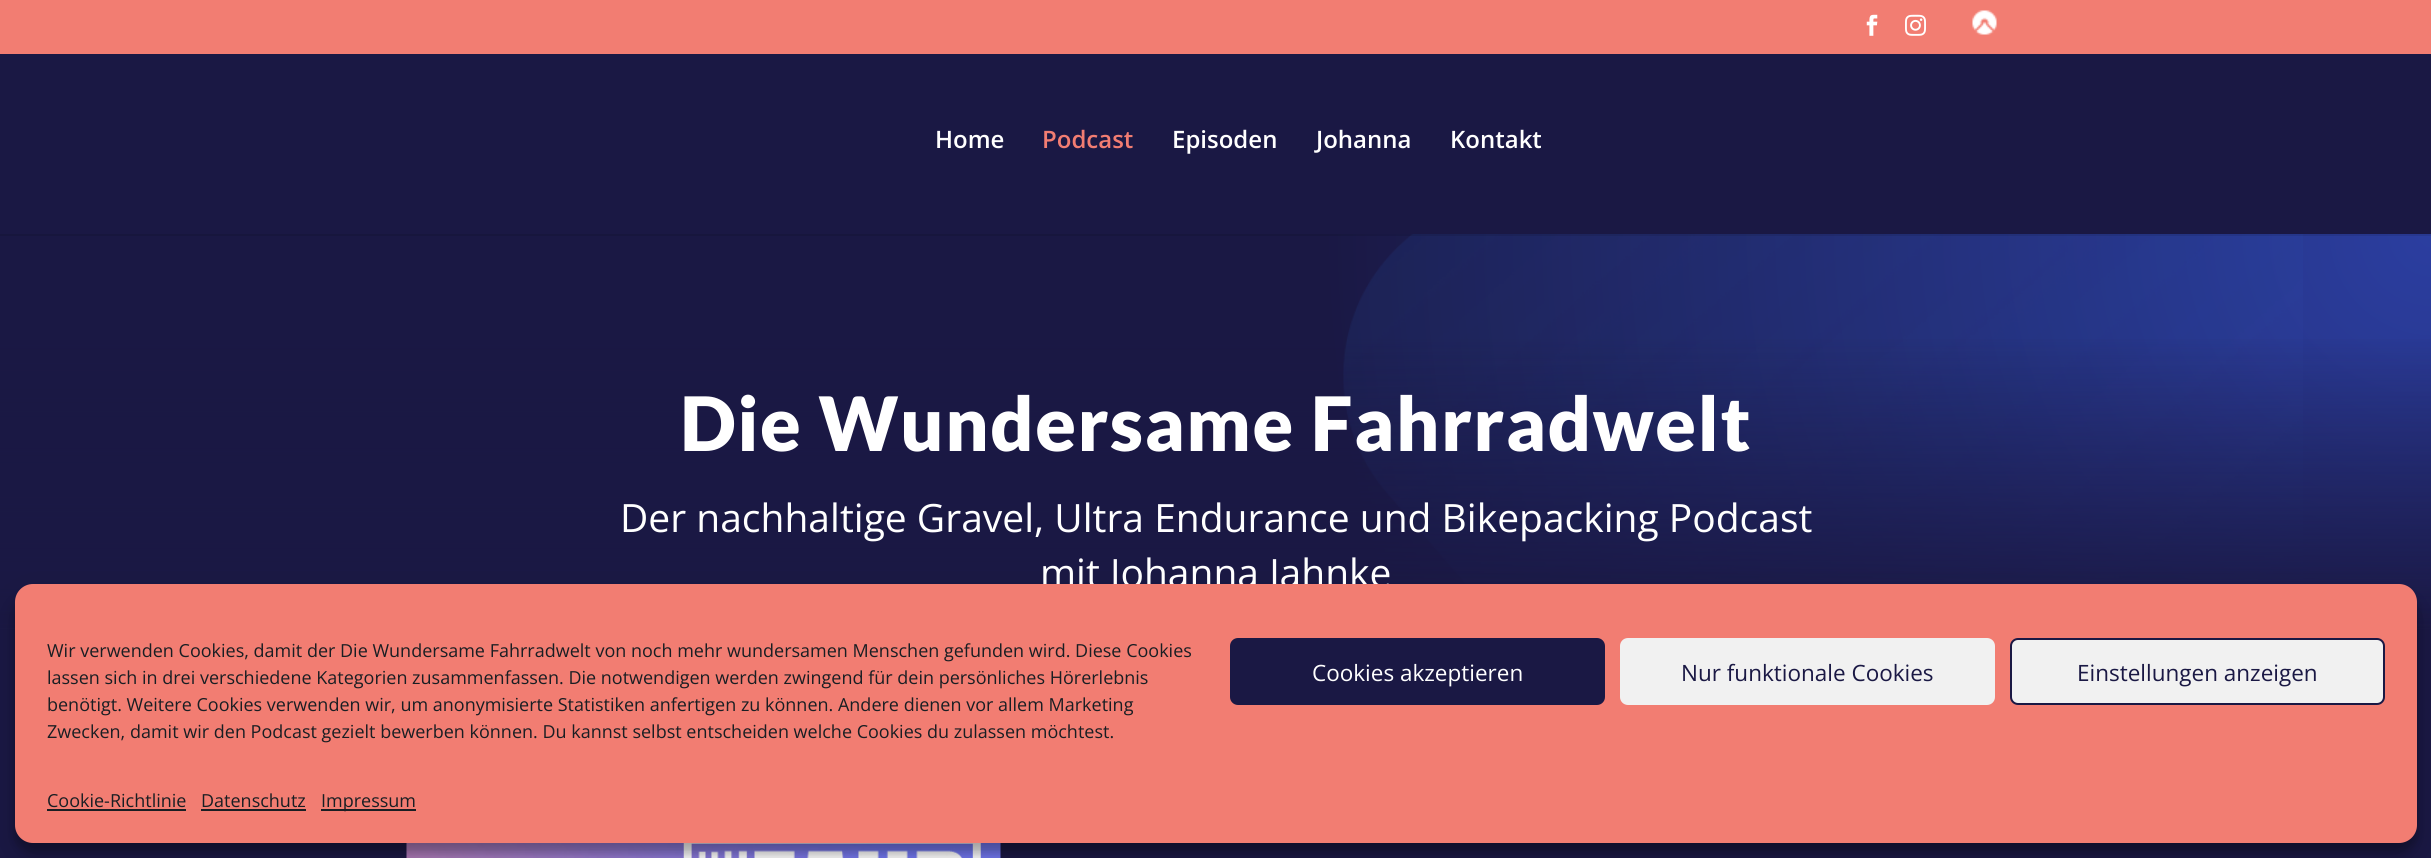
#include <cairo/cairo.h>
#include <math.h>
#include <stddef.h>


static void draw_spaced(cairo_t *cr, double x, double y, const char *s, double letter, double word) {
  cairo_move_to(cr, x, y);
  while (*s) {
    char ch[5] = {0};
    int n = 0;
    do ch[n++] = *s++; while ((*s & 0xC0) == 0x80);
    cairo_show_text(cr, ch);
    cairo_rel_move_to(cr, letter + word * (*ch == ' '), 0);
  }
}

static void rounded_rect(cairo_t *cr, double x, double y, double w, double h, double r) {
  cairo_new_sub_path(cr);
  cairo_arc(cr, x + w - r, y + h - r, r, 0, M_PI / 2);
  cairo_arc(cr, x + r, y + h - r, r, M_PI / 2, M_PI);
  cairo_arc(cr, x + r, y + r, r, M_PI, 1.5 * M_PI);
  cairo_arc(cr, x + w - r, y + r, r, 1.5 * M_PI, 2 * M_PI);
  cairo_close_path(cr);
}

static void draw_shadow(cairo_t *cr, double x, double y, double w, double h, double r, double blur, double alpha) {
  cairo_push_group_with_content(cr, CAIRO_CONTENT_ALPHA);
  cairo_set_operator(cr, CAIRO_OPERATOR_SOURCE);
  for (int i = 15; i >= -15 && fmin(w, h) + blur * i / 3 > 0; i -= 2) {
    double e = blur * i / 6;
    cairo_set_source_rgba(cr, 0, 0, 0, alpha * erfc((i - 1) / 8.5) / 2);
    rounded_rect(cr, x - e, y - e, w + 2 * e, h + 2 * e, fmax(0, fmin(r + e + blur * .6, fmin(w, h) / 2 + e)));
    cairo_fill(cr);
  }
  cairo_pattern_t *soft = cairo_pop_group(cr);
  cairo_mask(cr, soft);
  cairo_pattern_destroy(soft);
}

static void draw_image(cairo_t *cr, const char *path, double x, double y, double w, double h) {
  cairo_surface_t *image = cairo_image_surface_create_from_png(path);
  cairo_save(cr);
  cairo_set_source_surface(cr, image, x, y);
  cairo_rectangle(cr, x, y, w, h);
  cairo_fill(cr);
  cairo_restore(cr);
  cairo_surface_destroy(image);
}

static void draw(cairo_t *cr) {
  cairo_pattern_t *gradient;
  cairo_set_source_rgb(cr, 1, 1, 1);
  cairo_paint(cr);
  cairo_set_source_rgb(cr, 242 / 255.0, 125 / 255.0, 114 / 255.0);
  cairo_rectangle(cr, 0, 0, 2431, 54);
  cairo_fill(cr);
  draw_image(cr, "images/1.png", 1866, 14, 12, 22);
  draw_image(cr, "images/2.png", 1905, 14, 21, 22);
  draw_image(cr, "images/3.png", 1972, 10, 25, 25);
  gradient = cairo_pattern_create_radial(2432, 233, 0, 2432, 233, 2464);
  cairo_pattern_add_color_stop_rgba(gradient, 0, 43 / 255.0, 62 / 255.0, 160 / 255.0, 1);
  cairo_pattern_add_color_stop_rgba(gradient, 0.45, 26 / 255.0, 24 / 255.0, 68 / 255.0, 1);
  cairo_set_source(cr, gradient);
  cairo_pattern_destroy(gradient);
  cairo_rectangle(cr, 0, 234, 2431, 394);
  cairo_fill(cr);
  draw_image(cr, "images/4.png", 1343, 234, 960, 350);
  cairo_set_source_rgba(cr, 0, 0, 0, 0.1);
  cairo_new_path(cr);
  cairo_move_to(cr, 0, 234);
  cairo_line_to(cr, 0, 236);
  cairo_line_to(cr, 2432, 236);
  cairo_line_to(cr, 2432, 56);
  cairo_line_to(cr, 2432, 234);
  cairo_close_path(cr);
  cairo_fill(cr);
  cairo_set_source_rgb(cr, 26 / 255.0, 24 / 255.0, 68 / 255.0);
  cairo_rectangle(cr, 0, 54, 2431, 180);
  cairo_fill(cr);
  gradient = cairo_pattern_create_linear(1216, 330, 1216, 630);
  cairo_pattern_add_color_stop_rgba(gradient, 0, 26 / 255.0, 24 / 255.0, 68 / 255.0, 0);
  cairo_pattern_add_color_stop_rgba(gradient, 1, 26 / 255.0, 24 / 255.0, 68 / 255.0, 1);
  cairo_set_source(cr, gradient);
  cairo_pattern_destroy(gradient);
  cairo_rectangle(cr, 0, 339, 2431, 291);
  cairo_fill(cr);
  cairo_set_source_rgb(cr, 26 / 255.0, 24 / 255.0, 68 / 255.0);
  cairo_rectangle(cr, 0, 630, 2431, 228);
  cairo_fill(cr);
  draw_image(cr, "images/5.png", 406, 843, 595, 15);
  cairo_set_source_rgb(cr, 0, 0, 0);
  draw_shadow(cr, 15, 593, 2402, 259, 18, 4.5, 0.23);
  draw_shadow(cr, 15, 599, 2402, 259, 18, 15, 0.19);
  cairo_select_font_face(cr, "Open Sans SemiBold", CAIRO_FONT_SLANT_NORMAL, CAIRO_FONT_WEIGHT_NORMAL);
  cairo_set_font_size(cr, 24);
  cairo_set_source_rgb(cr, 1, 1, 1);
  cairo_move_to(cr, 935, 148);
  cairo_show_text(cr, "Home");
  cairo_set_source_rgb(cr, 242 / 255.0, 125 / 255.0, 114 / 255.0);
  cairo_move_to(cr, 1042, 148);
  cairo_show_text(cr, "Podcast");
  cairo_set_source_rgb(cr, 1, 1, 1);
  cairo_move_to(cr, 1172, 148);
  cairo_show_text(cr, "Episoden");
  cairo_move_to(cr, 1316, 148);
  cairo_show_text(cr, "Johanna");
  cairo_move_to(cr, 1450, 148);
  cairo_show_text(cr, "Kontakt");
  cairo_select_font_face(cr, "Lato Black", CAIRO_FONT_SLANT_NORMAL, CAIRO_FONT_WEIGHT_NORMAL);
  cairo_set_font_size(cr, 75);
  draw_spaced(cr, 680, 451, "Die Wundersame Fahrradwelt", 1.5, 0);
  cairo_select_font_face(cr, "Open Sans", CAIRO_FONT_SLANT_NORMAL, CAIRO_FONT_WEIGHT_NORMAL);
  cairo_set_font_size(cr, 39);
  cairo_move_to(cr, 620, 532);
  cairo_show_text(cr, "Der nachhaltige Gravel, Ultra Endurance und Bikepacking Podcast");
  cairo_move_to(cr, 1040, 587);
  cairo_show_text(cr, "mit Johanna Jahnke");
  cairo_set_source_rgb(cr, 242 / 255.0, 125 / 255.0, 114 / 255.0);
  rounded_rect(cr, 16, 585, 2400, 257, 17);
  cairo_fill_preserve(cr);
  cairo_stroke(cr);
  cairo_set_font_size(cr, 18);
  cairo_set_source_rgb(cr, 25 / 255.0, 30 / 255.0, 35 / 255.0);
  cairo_move_to(cr, 47, 657);
  cairo_show_text(cr, "Wir verwenden Cookies, damit der Die Wundersame Fahrradwelt von noch mehr wundersamen Menschen gefunden wird. Diese Cookies");
  cairo_move_to(cr, 47, 684);
  cairo_show_text(cr, "lassen sich in drei verschiedene Kategorien zusammenfassen. Die notwendigen werden zwingend für dein persönliches Hörerlebnis");
  cairo_move_to(cr, 47, 711);
  cairo_show_text(cr, "benötigt. Weitere Cookies verwenden wir, um anonymisierte Statistiken anfertigen zu können. Andere dienen vor allem Marketing");
  cairo_move_to(cr, 47, 738);
  cairo_show_text(cr, "Zwecken, damit wir den Podcast gezielt bewerben können. Du kannst selbst entscheiden welche Cookies du zulassen möchtest.");
  cairo_set_source_rgb(cr, 26 / 255.0, 24 / 255.0, 68 / 255.0);
  rounded_rect(cr, 1231, 639, 373, 65, 7);
  cairo_fill_preserve(cr);
  cairo_stroke(cr);
  cairo_set_font_size(cr, 22.5);
  cairo_set_source_rgb(cr, 1, 1, 1);
  cairo_move_to(cr, 1312, 681);
  cairo_show_text(cr, "Cookies akzeptieren");
  cairo_set_source_rgb(cr, 241 / 255.0, 241 / 255.0, 241 / 255.0);
  rounded_rect(cr, 1621, 639, 373, 65, 7);
  cairo_fill_preserve(cr);
  cairo_stroke(cr);
  cairo_set_source_rgb(cr, 26 / 255.0, 24 / 255.0, 68 / 255.0);
  cairo_move_to(cr, 1681, 681);
  cairo_show_text(cr, "Nur funktionale Cookies");
  cairo_set_source_rgb(cr, 241 / 255.0, 241 / 255.0, 241 / 255.0);
  rounded_rect(cr, 2011, 639, 373, 65, 7);
  cairo_fill_preserve(cr);
  cairo_set_source_rgb(cr, 26 / 255.0, 24 / 255.0, 68 / 255.0);
  cairo_stroke(cr);
  cairo_move_to(cr, 2077, 681);
  cairo_show_text(cr, "Einstellungen anzeigen");
  cairo_set_font_size(cr, 18);
  cairo_set_source_rgb(cr, 25 / 255.0, 30 / 255.0, 35 / 255.0);
  cairo_move_to(cr, 47, 807);
  cairo_show_text(cr, "Cookie-Richtlinie");
  cairo_rectangle(cr, 47, 809, 139, 2);
  cairo_fill(cr);
  cairo_move_to(cr, 201, 807);
  cairo_show_text(cr, "Datenschutz");
  cairo_rectangle(cr, 201, 809, 105, 2);
  cairo_fill(cr);
  cairo_rectangle(cr, 321, 809, 95, 2);
  cairo_fill(cr);
  cairo_move_to(cr, 321, 807);
  cairo_show_text(cr, "Impressum");
}

int main(void) {
  cairo_surface_t *surface = cairo_image_surface_create(CAIRO_FORMAT_RGB24, 2431, 858);
  cairo_t *cr = cairo_create(surface);
  cairo_font_options_t *options = cairo_font_options_create();
  cairo_font_options_set_hint_metrics(options, CAIRO_HINT_METRICS_OFF);
  cairo_font_options_set_hint_style(options, CAIRO_HINT_STYLE_NONE);
  cairo_set_font_options(cr, options);
  cairo_set_miter_limit(cr, 4);
  draw(cr);
  cairo_surface_write_to_png(surface, "out.png");
  cairo_font_options_destroy(options);
  cairo_destroy(cr);
  cairo_surface_destroy(surface);
  return 0;
}
